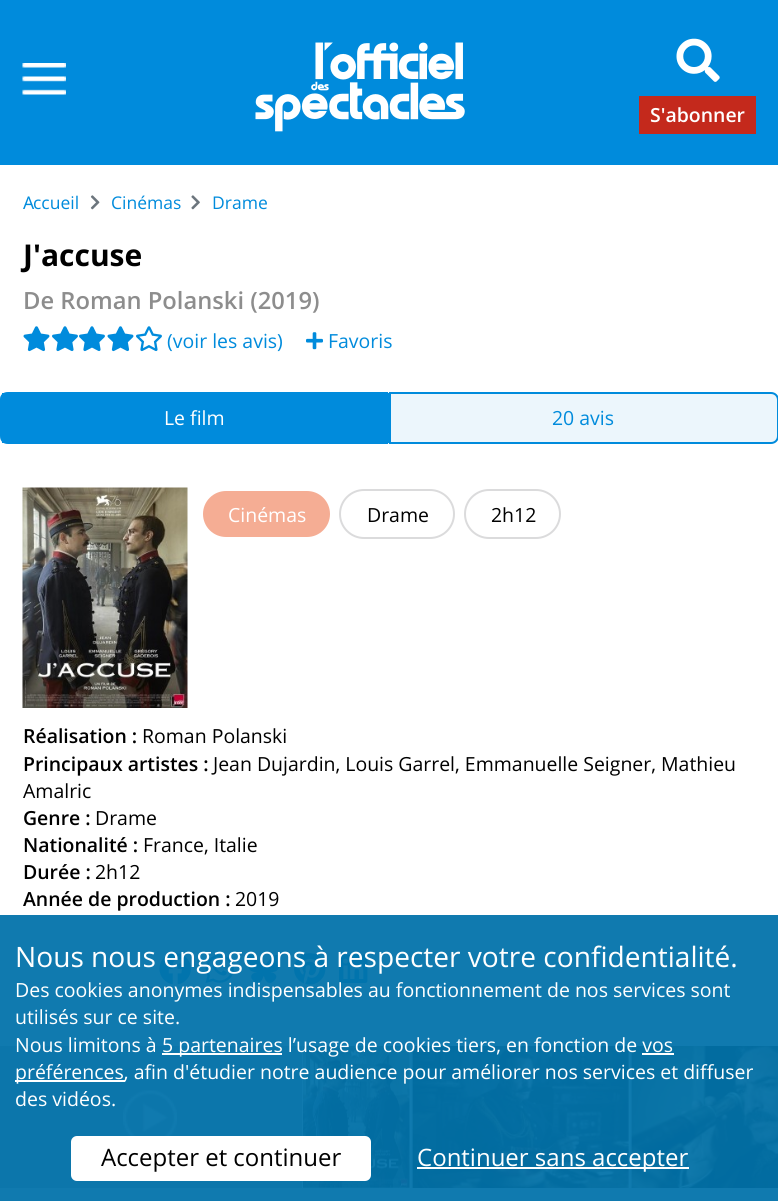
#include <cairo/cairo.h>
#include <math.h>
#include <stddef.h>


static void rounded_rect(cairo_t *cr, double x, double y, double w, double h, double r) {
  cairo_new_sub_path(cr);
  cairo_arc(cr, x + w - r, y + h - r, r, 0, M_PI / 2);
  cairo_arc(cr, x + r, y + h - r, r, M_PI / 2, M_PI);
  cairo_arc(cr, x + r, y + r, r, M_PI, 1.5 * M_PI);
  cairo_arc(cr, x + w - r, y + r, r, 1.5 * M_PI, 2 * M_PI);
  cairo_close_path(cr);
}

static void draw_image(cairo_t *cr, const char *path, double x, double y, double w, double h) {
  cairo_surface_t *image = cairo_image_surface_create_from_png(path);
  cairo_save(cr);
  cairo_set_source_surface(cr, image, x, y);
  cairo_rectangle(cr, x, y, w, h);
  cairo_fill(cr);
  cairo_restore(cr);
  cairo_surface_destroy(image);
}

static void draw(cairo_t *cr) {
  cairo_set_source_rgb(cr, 1, 1, 1);
  cairo_paint(cr);
  cairo_set_source_rgb(cr, 16 / 255.0, 122 / 255.0, 175 / 255.0);
  cairo_rectangle(cr, 0, 915, 778, 286);
  cairo_fill(cr);
  cairo_set_source_rgb(cr, 0, 139 / 255.0, 220 / 255.0);
  cairo_rectangle(cr, 0, 0, 778, 165);
  cairo_fill(cr);
  draw_image(cr, "images/1.png", 22, 63, 44, 32);
  draw_image(cr, "images/2.png", 255, 42, 210, 90);
  draw_image(cr, "images/3.png", 676, 38, 44, 44);
  cairo_set_source_rgb(cr, 196 / 255.0, 41 / 255.0, 28 / 255.0);
  cairo_rectangle(cr, 639, 96, 117, 38);
  cairo_fill(cr);
  draw_image(cr, "images/4.png", 90, 195, 10, 15);
  draw_image(cr, "images/5.png", 191, 195, 9, 15);
  draw_image(cr, "images/6.png", 23, 326, 27, 26);
  draw_image(cr, "images/7.png", 52, 326, 26, 26);
  draw_image(cr, "images/7.png", 79, 326, 26, 26);
  draw_image(cr, "images/6.png", 107, 326, 27, 26);
  draw_image(cr, "images/8.png", 136, 326, 26, 26);
  draw_image(cr, "images/9.png", 306, 332, 17, 18);
  cairo_set_source_rgb(cr, 236 / 255.0, 246 / 255.0, 252 / 255.0);
  cairo_new_path(cr);
  cairo_move_to(cr, 8, 392);
  cairo_line_to(cr, 389, 392);
  cairo_line_to(cr, 389, 444);
  cairo_line_to(cr, 8, 444);
  cairo_curve_to(cr, 3.5, 444, 0, 440.5, 0, 436);
  cairo_line_to(cr, 0, 400);
  cairo_curve_to(cr, 0, 395.5, 3.5, 392, 8, 392);
  cairo_close_path(cr);
  cairo_fill(cr);
  cairo_set_source_rgb(cr, 0, 139 / 255.0, 220 / 255.0);
  cairo_set_fill_rule(cr, CAIRO_FILL_RULE_EVEN_ODD);
  cairo_new_path(cr);
  cairo_move_to(cr, 8, 392);
  cairo_line_to(cr, 388, 392);
  cairo_line_to(cr, 388, 444);
  cairo_line_to(cr, 8, 444);
  cairo_curve_to(cr, 3, 444, 0, 441, 0, 436);
  cairo_line_to(cr, 0, 399);
  cairo_curve_to(cr, 0, 395, 3, 392, 8, 392);
  cairo_close_path(cr);
  cairo_move_to(cr, 8, 393);
  cairo_line_to(cr, 388, 393);
  cairo_line_to(cr, 388, 442);
  cairo_line_to(cr, 8, 442);
  cairo_curve_to(cr, 4, 442, 2, 440, 2, 436);
  cairo_line_to(cr, 2, 399);
  cairo_curve_to(cr, 2, 396, 4, 393, 8, 393);
  cairo_close_path(cr);
  cairo_fill(cr);
  cairo_rectangle(cr, 2, 393, 387, 50);
  cairo_fill(cr);
  cairo_set_source_rgb(cr, 236 / 255.0, 246 / 255.0, 252 / 255.0);
  cairo_new_path(cr);
  cairo_move_to(cr, 390, 393);
  cairo_line_to(cr, 771, 393);
  cairo_curve_to(cr, 775, 393, 778, 396, 778, 400);
  cairo_line_to(cr, 778, 436);
  cairo_curve_to(cr, 778, 440, 775, 443, 771, 443);
  cairo_line_to(cr, 390, 443);
  cairo_close_path(cr);
  cairo_fill_preserve(cr);
  cairo_set_source_rgb(cr, 0, 139 / 255.0, 220 / 255.0);
  cairo_stroke(cr);
  draw_image(cr, "images/10.png", 22, 487, 166, 221);
  cairo_set_source_rgb(cr, 245 / 255.0, 173 / 255.0, 148 / 255.0);
  rounded_rect(cr, 203, 491, 127, 46, 23);
  cairo_fill(cr);
  rounded_rect(cr, 340, 490, 114, 48, 24);
  cairo_set_source_rgb(cr, 219 / 255.0, 219 / 255.0, 220 / 255.0);
  cairo_stroke(cr);
  rounded_rect(cr, 465, 490, 95, 48, 24);
  cairo_stroke(cr);
  draw_image(cr, "images/11.png", 159, 953, 32, 32);
  draw_image(cr, "images/12.png", 205, 954, 29, 29);
  draw_image(cr, "images/13.png", 247, 954, 33, 29);
  draw_image(cr, "images/14.png", 294, 953, 32, 32);
  draw_image(cr, "images/15.png", 339, 954, 29, 29);
  cairo_set_source_rgb(cr, 12 / 255.0, 118 / 255.0, 171 / 255.0);
  cairo_rectangle(cr, 0, 1046, 302, 142);
  cairo_fill(cr);
  draw_image(cr, "images/16.png", 123, 1090, 54, 46);
  draw_image(cr, "images/17.png", 303, 1046, 107, 142);
  draw_image(cr, "images/18.png", 411, 1046, 218, 142);
  draw_image(cr, "images/19.png", 630, 1046, 148, 142);
  cairo_set_source_rgb(cr, 1, 1, 1);
  cairo_rectangle(cr, 162, 1053, 120, 2);
  cairo_fill(cr);
  cairo_rectangle(cr, 642, 1053, 32, 2);
  cairo_fill(cr);
  cairo_rectangle(cr, 15, 1080, 110, 2);
  cairo_fill(cr);
  rounded_rect(cr, 71, 1136, 300, 45, 6);
  cairo_fill(cr);
  cairo_rectangle(cr, 417, 1167, 272, 2);
  cairo_fill(cr);
  cairo_select_font_face(cr, "Open Sans SemiBold", CAIRO_FONT_SLANT_NORMAL, CAIRO_FONT_WEIGHT_NORMAL);
  cairo_set_font_size(cr, 19.45);
  cairo_move_to(cr, 650, 122);
  cairo_show_text(cr, "S'abonner");
  cairo_select_font_face(cr, "Noto Sans", CAIRO_FONT_SLANT_NORMAL, CAIRO_FONT_WEIGHT_NORMAL);
  cairo_set_font_size(cr, 17.5);
  cairo_set_source_rgb(cr, 0, 139 / 255.0, 220 / 255.0);
  cairo_move_to(cr, 23, 209);
  cairo_show_text(cr, "A");
  cairo_select_font_face(cr, "Open Sans", CAIRO_FONT_SLANT_NORMAL, CAIRO_FONT_WEIGHT_NORMAL);
  cairo_move_to(cr, 33, 209);
  cairo_show_text(cr, "ccueil");
  cairo_move_to(cr, 111, 209);
  cairo_show_text(cr, "Cinémas");
  cairo_move_to(cr, 212, 209);
  cairo_show_text(cr, "Drame");
  cairo_select_font_face(cr, "Open Sans", CAIRO_FONT_SLANT_NORMAL, CAIRO_FONT_WEIGHT_BOLD);
  cairo_set_font_size(cr, 30);
  cairo_set_source_rgb(cr, 0, 0, 0);
  cairo_move_to(cr, 23, 266);
  cairo_show_text(cr, "J'accuse");
  cairo_select_font_face(cr, "Open Sans SemiBold", CAIRO_FONT_SLANT_NORMAL, CAIRO_FONT_WEIGHT_NORMAL);
  cairo_set_font_size(cr, 23.75);
  cairo_set_source_rgb(cr, 141 / 255.0, 141 / 255.0, 141 / 255.0);
  cairo_move_to(cr, 23, 309);
  cairo_show_text(cr, "De Roman Polanski (2019)");
  cairo_select_font_face(cr, "Open Sans", CAIRO_FONT_SLANT_NORMAL, CAIRO_FONT_WEIGHT_NORMAL);
  cairo_set_font_size(cr, 19.45);
  cairo_set_source_rgb(cr, 0, 139 / 255.0, 220 / 255.0);
  cairo_move_to(cr, 167, 348);
  cairo_show_text(cr, "(voir les avis)");
  cairo_move_to(cr, 328, 348);
  cairo_show_text(cr, "Favoris");
  cairo_set_source_rgb(cr, 1, 1, 1);
  cairo_move_to(cr, 164, 425);
  cairo_show_text(cr, "Le film");
  cairo_set_source_rgb(cr, 0, 139 / 255.0, 220 / 255.0);
  cairo_move_to(cr, 552, 425);
  cairo_show_text(cr, "20 avis");
  cairo_set_source_rgb(cr, 1, 1, 1);
  cairo_move_to(cr, 228, 522);
  cairo_show_text(cr, "Cinémas");
  cairo_set_source_rgb(cr, 0, 0, 0);
  cairo_move_to(cr, 367, 522);
  cairo_show_text(cr, "Drame");
  cairo_move_to(cr, 491, 522);
  cairo_show_text(cr, "2h12");
  cairo_select_font_face(cr, "Open Sans SemiBold", CAIRO_FONT_SLANT_NORMAL, CAIRO_FONT_WEIGHT_NORMAL);
  cairo_move_to(cr, 23, 743);
  cairo_show_text(cr, "Réalisation :");
  cairo_select_font_face(cr, "Open Sans", CAIRO_FONT_SLANT_NORMAL, CAIRO_FONT_WEIGHT_NORMAL);
  cairo_move_to(cr, 142, 743);
  cairo_show_text(cr, "Roman Polanski");
  cairo_select_font_face(cr, "Open Sans SemiBold", CAIRO_FONT_SLANT_NORMAL, CAIRO_FONT_WEIGHT_NORMAL);
  cairo_move_to(cr, 23, 771);
  cairo_show_text(cr, "Principaux artistes :");
  cairo_select_font_face(cr, "Open Sans", CAIRO_FONT_SLANT_NORMAL, CAIRO_FONT_WEIGHT_NORMAL);
  cairo_move_to(cr, 213, 771);
  cairo_show_text(cr, "Jean Dujardin, Louis Garrel, Emmanuelle Seigner, Mathieu");
  cairo_move_to(cr, 23, 798);
  cairo_show_text(cr, "Amalric");
  cairo_select_font_face(cr, "Open Sans SemiBold", CAIRO_FONT_SLANT_NORMAL, CAIRO_FONT_WEIGHT_NORMAL);
  cairo_move_to(cr, 23, 825);
  cairo_show_text(cr, "Genre :");
  cairo_select_font_face(cr, "Open Sans", CAIRO_FONT_SLANT_NORMAL, CAIRO_FONT_WEIGHT_NORMAL);
  cairo_move_to(cr, 95, 825);
  cairo_show_text(cr, "Drame");
  cairo_select_font_face(cr, "Open Sans SemiBold", CAIRO_FONT_SLANT_NORMAL, CAIRO_FONT_WEIGHT_NORMAL);
  cairo_move_to(cr, 23, 852);
  cairo_show_text(cr, "Nationalité :");
  cairo_select_font_face(cr, "Open Sans", CAIRO_FONT_SLANT_NORMAL, CAIRO_FONT_WEIGHT_NORMAL);
  cairo_move_to(cr, 143, 852);
  cairo_show_text(cr, "France, Italie");
  cairo_select_font_face(cr, "Open Sans SemiBold", CAIRO_FONT_SLANT_NORMAL, CAIRO_FONT_WEIGHT_NORMAL);
  cairo_move_to(cr, 23, 879);
  cairo_show_text(cr, "Durée :");
  cairo_select_font_face(cr, "Open Sans", CAIRO_FONT_SLANT_NORMAL, CAIRO_FONT_WEIGHT_NORMAL);
  cairo_move_to(cr, 95, 879);
  cairo_show_text(cr, "2h12");
  cairo_select_font_face(cr, "Open Sans SemiBold", CAIRO_FONT_SLANT_NORMAL, CAIRO_FONT_WEIGHT_NORMAL);
  cairo_move_to(cr, 23, 906);
  cairo_show_text(cr, "Année de production :");
  cairo_select_font_face(cr, "Open Sans", CAIRO_FONT_SLANT_NORMAL, CAIRO_FONT_WEIGHT_NORMAL);
  cairo_move_to(cr, 235, 906);
  cairo_show_text(cr, "2019");
  cairo_set_font_size(cr, 28.1);
  cairo_set_source_rgb(cr, 1, 1, 1);
  cairo_move_to(cr, 15, 967);
  cairo_show_text(cr, "Nous nous engageons à respecter votre confidentialité.");
  cairo_set_font_size(cr, 19.5);
  cairo_move_to(cr, 15, 997);
  cairo_show_text(cr, "Des cookies anonymes indispensables au fonctionnement de nos services sont");
  cairo_move_to(cr, 15, 1024);
  cairo_show_text(cr, "utilisés sur ce site.");
  cairo_move_to(cr, 15, 1052);
  cairo_show_text(cr, "Nous limitons à");
  cairo_move_to(cr, 162, 1052);
  cairo_show_text(cr, "5 partenaires l’usage de cookies tiers, en fonction de vos");
  cairo_move_to(cr, 15, 1079);
  cairo_show_text(cr, "préférences, afin d'étudier notre audience pour améliorer nos services et diffuser");
  cairo_move_to(cr, 15, 1106);
  cairo_show_text(cr, "des vidéos.");
  cairo_set_font_size(cr, 24);
  cairo_set_source_rgb(cr, 0, 0, 0);
  cairo_move_to(cr, 101, 1166);
  cairo_show_text(cr, "Accepter et continuer");
  cairo_set_source_rgb(cr, 1, 1, 1);
  cairo_move_to(cr, 417, 1166);
  cairo_show_text(cr, "Continuer sans accepter");
}

int main(void) {
  cairo_surface_t *surface = cairo_image_surface_create(CAIRO_FORMAT_RGB24, 778, 1201);
  cairo_t *cr = cairo_create(surface);
  cairo_font_options_t *options = cairo_font_options_create();
  cairo_font_options_set_hint_metrics(options, CAIRO_HINT_METRICS_OFF);
  cairo_font_options_set_hint_style(options, CAIRO_HINT_STYLE_NONE);
  cairo_set_font_options(cr, options);
  cairo_set_miter_limit(cr, 4);
  draw(cr);
  cairo_surface_write_to_png(surface, "out.png");
  cairo_font_options_destroy(options);
  cairo_destroy(cr);
  cairo_surface_destroy(surface);
  return 0;
}
